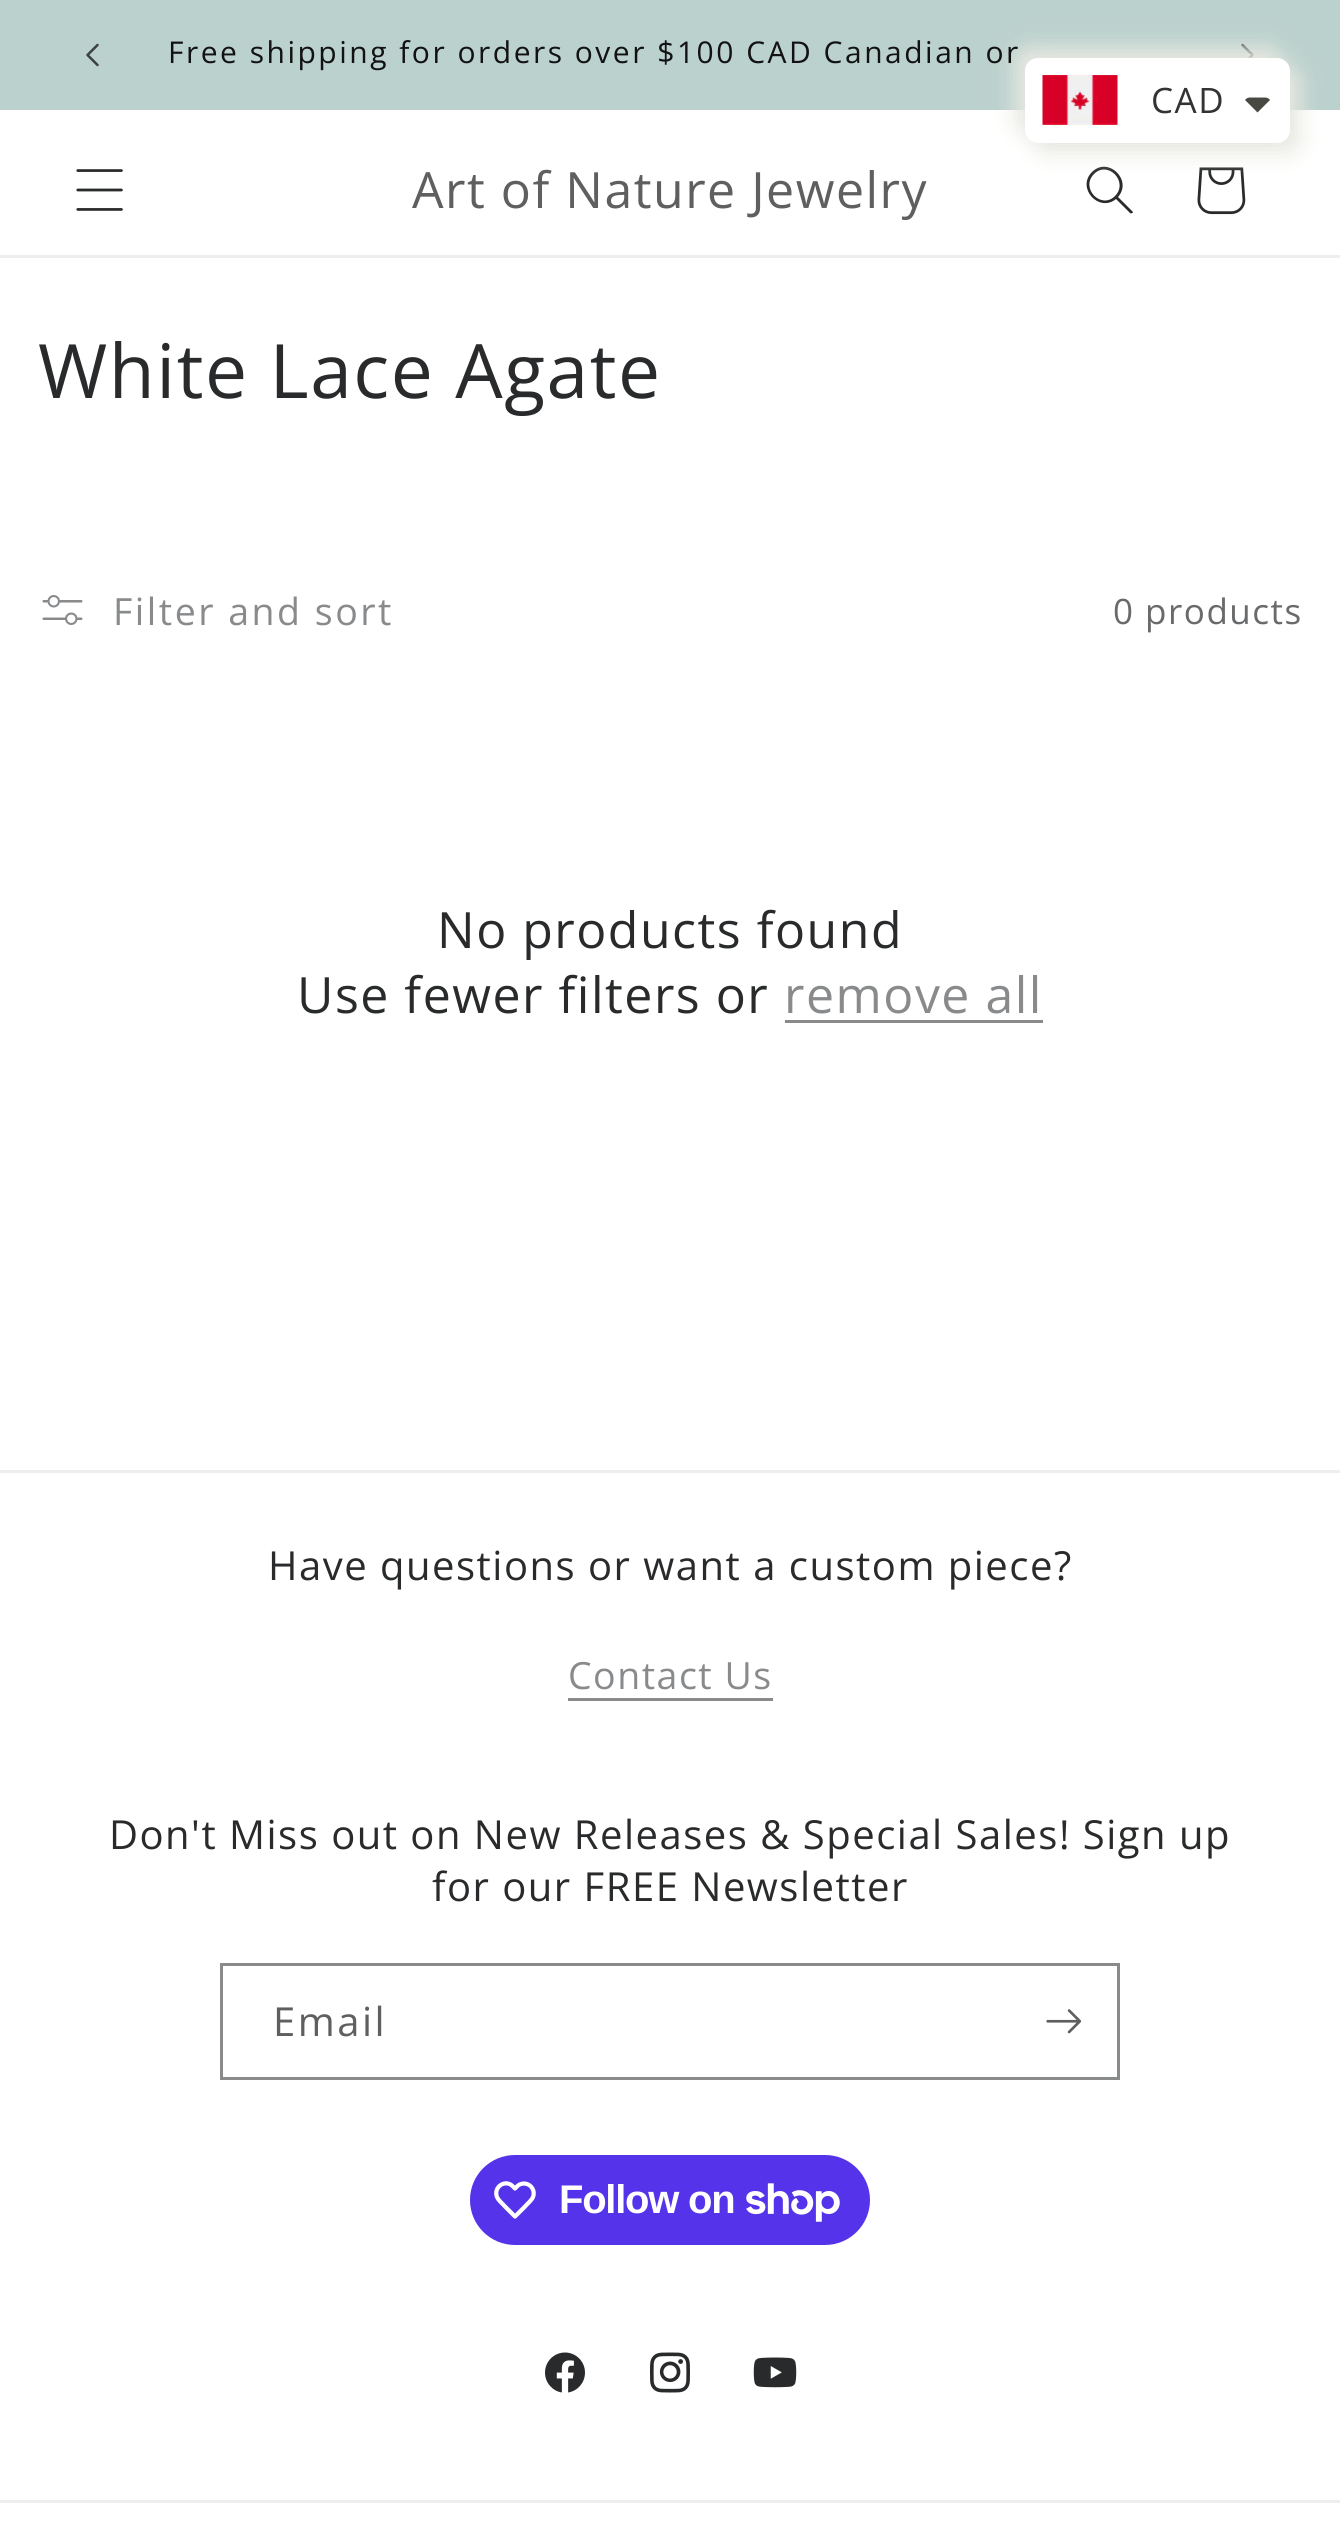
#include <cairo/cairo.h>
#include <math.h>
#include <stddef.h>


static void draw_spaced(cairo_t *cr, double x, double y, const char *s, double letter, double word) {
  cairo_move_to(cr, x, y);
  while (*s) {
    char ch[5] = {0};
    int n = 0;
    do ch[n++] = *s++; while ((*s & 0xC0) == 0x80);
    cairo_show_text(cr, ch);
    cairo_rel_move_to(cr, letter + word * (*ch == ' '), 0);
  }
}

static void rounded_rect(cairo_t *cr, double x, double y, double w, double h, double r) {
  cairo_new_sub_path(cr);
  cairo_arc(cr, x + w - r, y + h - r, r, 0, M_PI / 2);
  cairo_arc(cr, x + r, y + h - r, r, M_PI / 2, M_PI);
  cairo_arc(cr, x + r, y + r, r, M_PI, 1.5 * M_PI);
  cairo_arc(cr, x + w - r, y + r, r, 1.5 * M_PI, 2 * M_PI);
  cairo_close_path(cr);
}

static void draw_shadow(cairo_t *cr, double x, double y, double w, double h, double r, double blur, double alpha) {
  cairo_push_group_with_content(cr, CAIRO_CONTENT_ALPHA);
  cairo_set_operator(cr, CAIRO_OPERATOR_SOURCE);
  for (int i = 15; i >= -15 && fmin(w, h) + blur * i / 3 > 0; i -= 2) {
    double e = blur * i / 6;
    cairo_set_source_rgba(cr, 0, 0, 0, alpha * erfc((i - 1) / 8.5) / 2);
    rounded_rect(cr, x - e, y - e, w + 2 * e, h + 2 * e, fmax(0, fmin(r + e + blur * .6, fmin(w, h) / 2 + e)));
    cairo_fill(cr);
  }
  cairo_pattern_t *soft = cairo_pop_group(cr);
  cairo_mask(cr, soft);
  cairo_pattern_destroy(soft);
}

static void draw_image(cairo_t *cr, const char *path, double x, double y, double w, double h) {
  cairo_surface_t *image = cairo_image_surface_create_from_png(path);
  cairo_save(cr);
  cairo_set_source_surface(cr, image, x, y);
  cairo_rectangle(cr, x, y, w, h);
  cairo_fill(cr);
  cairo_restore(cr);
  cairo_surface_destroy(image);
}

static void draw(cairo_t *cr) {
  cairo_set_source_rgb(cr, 1, 1, 1);
  cairo_paint(cr);
  cairo_set_source_rgb(cr, 187 / 255.0, 209 / 255.0, 205 / 255.0);
  cairo_rectangle(cr, 0, 0, 1340, 110);
  cairo_fill(cr);
  draw_image(cr, "images/1.png", 86, 43, 13, 24);
  draw_image(cr, "images/2.png", 1241, 43, 13, 15);
  cairo_set_source_rgb(cr, 41 / 255.0, 42 / 255.0, 43 / 255.0);
  cairo_set_fill_rule(cr, CAIRO_FILL_RULE_EVEN_ODD);
  cairo_new_path(cr);
  cairo_move_to(cr, 1115, 196);
  cairo_curve_to(cr, 1101, 210, 1080, 188, 1094, 174);
  cairo_curve_to(cr, 1108, 160, 1129, 182, 1115, 196);
  cairo_move_to(cr, 1116, 199);
  cairo_curve_to(cr, 1099, 213, 1076, 188, 1092, 172);
  cairo_curve_to(cr, 1108, 156, 1133, 180, 1118, 197);
  cairo_line_to(cr, 1133, 212);
  cairo_curve_to(cr, 1133, 213, 1131, 214, 1130, 213);
  cairo_close_path(cr);
  cairo_fill(cr);
  cairo_set_source_rgb(cr, 232 / 255.0, 232 / 255.0, 226 / 255.0);
  draw_shadow(cr, 1015, 48, 265, 85, 13, 11, 1);
  draw_image(cr, "images/5.png", 1197, 167, 49, 48);
  draw_shadow(cr, 1035, 68, 265, 85, 13, 11, 1);
  cairo_set_source_rgb(cr, 1, 1, 1);
  rounded_rect(cr, 1025, 58, 265, 85, 13);
  cairo_fill(cr);
  draw_image(cr, "images/3.png", 1042, 75, 76, 50);
  cairo_set_source_rgb(cr, 71 / 255.0, 73 / 255.0, 66 / 255.0);
  cairo_set_fill_rule(cr, CAIRO_FILL_RULE_WINDING);
  cairo_new_path(cr);
  cairo_move_to(cr, 1250, 97.5);
  cairo_curve_to(cr, 1248, 97.5, 1246, 98.5, 1245, 100);
  cairo_line_to(cr, 1257.5, 112.5);
  cairo_line_to(cr, 1270, 100);
  cairo_curve_to(cr, 1269, 98.5, 1267, 97.5, 1265, 97.5);
  cairo_close_path(cr);
  cairo_fill(cr);
  cairo_set_source_rgb(cr, 238 / 255.0, 238 / 255.0, 238 / 255.0);
  cairo_rectangle(cr, 0, 255, 1340, 3);
  cairo_fill(cr);
  draw_image(cr, "images/4.png", 76, 169, 47, 42);
  draw_image(cr, "images/6.png", 42, 595, 41, 30);
  cairo_set_source_rgb(cr, 136 / 255.0, 138 / 255.0, 140 / 255.0);
  cairo_rectangle(cr, 785, 1020, 258, 3);
  cairo_fill(cr);
  cairo_set_source_rgb(cr, 238 / 255.0, 238 / 255.0, 238 / 255.0);
  cairo_rectangle(cr, 0, 1470, 1340, 3);
  cairo_fill(cr);
  cairo_set_source_rgb(cr, 136 / 255.0, 138 / 255.0, 140 / 255.0);
  cairo_rectangle(cr, 568, 1698, 205, 3);
  cairo_fill(cr);
  cairo_rectangle(cr, 221.5, 1964.5, 897, 114);
  cairo_set_source_rgb(cr, 137 / 255.0, 138 / 255.0, 138 / 255.0);
  cairo_set_line_width(cr, 3);
  cairo_stroke(cr);
  draw_image(cr, "images/7.png", 1046, 2009, 36, 25);
  cairo_set_source_rgb(cr, 84 / 255.0, 51 / 255.0, 235 / 255.0);
  rounded_rect(cr, 470, 2155, 400, 90, 45);
  cairo_fill(cr);
  cairo_new_path(cr);
  cairo_move_to(cr, 513, 2186.5);
  cairo_line_to(cr, 515, 2188.5);
  cairo_curve_to(cr, 517, 2186.5, 518.5, 2184.5, 521, 2184);
  cairo_curve_to(cr, 529, 2181.5, 536, 2189.5, 533, 2197);
  cairo_curve_to(cr, 531.5, 2200.5, 528, 2203, 525.5, 2206);
  cairo_line_to(cr, 515, 2216.5);
  cairo_line_to(cr, 504.5, 2206);
  cairo_curve_to(cr, 502, 2203, 498.5, 2200.5, 497, 2197);
  cairo_curve_to(cr, 493, 2187, 505.5, 2178.5, 513, 2186.5);
  cairo_close_path(cr);
  cairo_set_source_rgb(cr, 1, 1, 1);
  cairo_set_line_width(cr, 4.2);
  cairo_set_line_join(cr, CAIRO_LINE_JOIN_ROUND);
  cairo_stroke(cr);
  draw_image(cr, "images/8.png", 746, 2183, 94, 39);
  draw_image(cr, "images/9.png", 545, 2352, 40, 41);
  draw_image(cr, "images/10.png", 650, 2352, 40, 41);
  draw_image(cr, "images/11.png", 753, 2357, 44, 31);
  cairo_set_source_rgb(cr, 238 / 255.0, 238 / 255.0, 238 / 255.0);
  cairo_rectangle(cr, 0, 2500, 1340, 3);
  cairo_fill(cr);
  cairo_select_font_face(cr, "Open Sans", CAIRO_FONT_SLANT_NORMAL, CAIRO_FONT_WEIGHT_NORMAL);
  cairo_set_font_size(cr, 30);
  cairo_set_source_rgb(cr, 18 / 255.0, 18 / 255.0, 18 / 255.0);
  draw_spaced(cr, 168, 63, "Free shipping for orders over $100 CAD Canadian or", 2.5, 0);
  cairo_set_font_size(cr, 35);
  cairo_set_source_rgb(cr, 51 / 255.0, 51 / 255.0, 51 / 255.0);
  draw_spaced(cr, 1151, 113, "CAD", 1.5, 0);
  cairo_set_font_size(cr, 50);
  cairo_set_source_rgb(cr, 95 / 255.0, 95 / 255.0, 96 / 255.0);
  draw_spaced(cr, 412, 208, "Art of Nature Jewelry", 1.5, 0);
  cairo_set_font_size(cr, 75);
  cairo_set_source_rgb(cr, 41 / 255.0, 42 / 255.0, 43 / 255.0);
  draw_spaced(cr, 38, 398, "White Lace Agate", 1.5, 0);
  cairo_set_font_size(cr, 37.5);
  cairo_set_source_rgb(cr, 136 / 255.0, 138 / 255.0, 140 / 255.0);
  draw_spaced(cr, 113, 625, "Filter and sort", 2.5, 0);
  cairo_set_font_size(cr, 35);
  cairo_set_source_rgb(cr, 105 / 255.0, 106 / 255.0, 107 / 255.0);
  draw_spaced(cr, 1113, 624, "0 products", 1.5, 0);
  cairo_set_font_size(cr, 50);
  cairo_set_source_rgb(cr, 41 / 255.0, 42 / 255.0, 43 / 255.0);
  draw_spaced(cr, 437, 948, "No products found", 1.5, 0);
  draw_spaced(cr, 297, 1013, "Use fewer filters or", 1.5, 0);
  cairo_set_source_rgb(cr, 136 / 255.0, 138 / 255.0, 140 / 255.0);
  draw_spaced(cr, 784, 1013, "remove all", 1.5, 0);
  cairo_set_font_size(cr, 40);
  cairo_set_source_rgb(cr, 41 / 255.0, 42 / 255.0, 43 / 255.0);
  draw_spaced(cr, 268, 1580, "Have questions or want a custom piece?", 1.5, 0);
  cairo_set_font_size(cr, 37.5);
  cairo_set_source_rgb(cr, 136 / 255.0, 138 / 255.0, 140 / 255.0);
  draw_spaced(cr, 568, 1689, "Contact Us", 1.5, 0);
  cairo_set_font_size(cr, 40);
  cairo_set_source_rgb(cr, 41 / 255.0, 42 / 255.0, 43 / 255.0);
  draw_spaced(cr, 109, 1849, "Don't Miss out on New Releases & Special Sales! Sign up", 1.5, 0);
  draw_spaced(cr, 432, 1901, "for our FREE Newsletter", 1.5, 0);
  cairo_set_source_rgb(cr, 95 / 255.0, 95 / 255.0, 96 / 255.0);
  draw_spaced(cr, 273, 2036, "Email", 2.5, 0);
  cairo_select_font_face(cr, "Liberation Sans", CAIRO_FONT_SLANT_NORMAL, CAIRO_FONT_WEIGHT_BOLD);
  cairo_set_source_rgb(cr, 1, 1, 1);
  draw_spaced(cr, 559, 2213, "Follow on", -1.25, 0);
}

int main(void) {
  cairo_surface_t *surface = cairo_image_surface_create(CAIRO_FORMAT_RGB24, 1340, 2543);
  cairo_t *cr = cairo_create(surface);
  cairo_font_options_t *options = cairo_font_options_create();
  cairo_font_options_set_hint_metrics(options, CAIRO_HINT_METRICS_OFF);
  cairo_font_options_set_hint_style(options, CAIRO_HINT_STYLE_NONE);
  cairo_set_font_options(cr, options);
  cairo_set_miter_limit(cr, 4);
  draw(cr);
  cairo_surface_write_to_png(surface, "out.png");
  cairo_font_options_destroy(options);
  cairo_destroy(cr);
  cairo_surface_destroy(surface);
  return 0;
}
